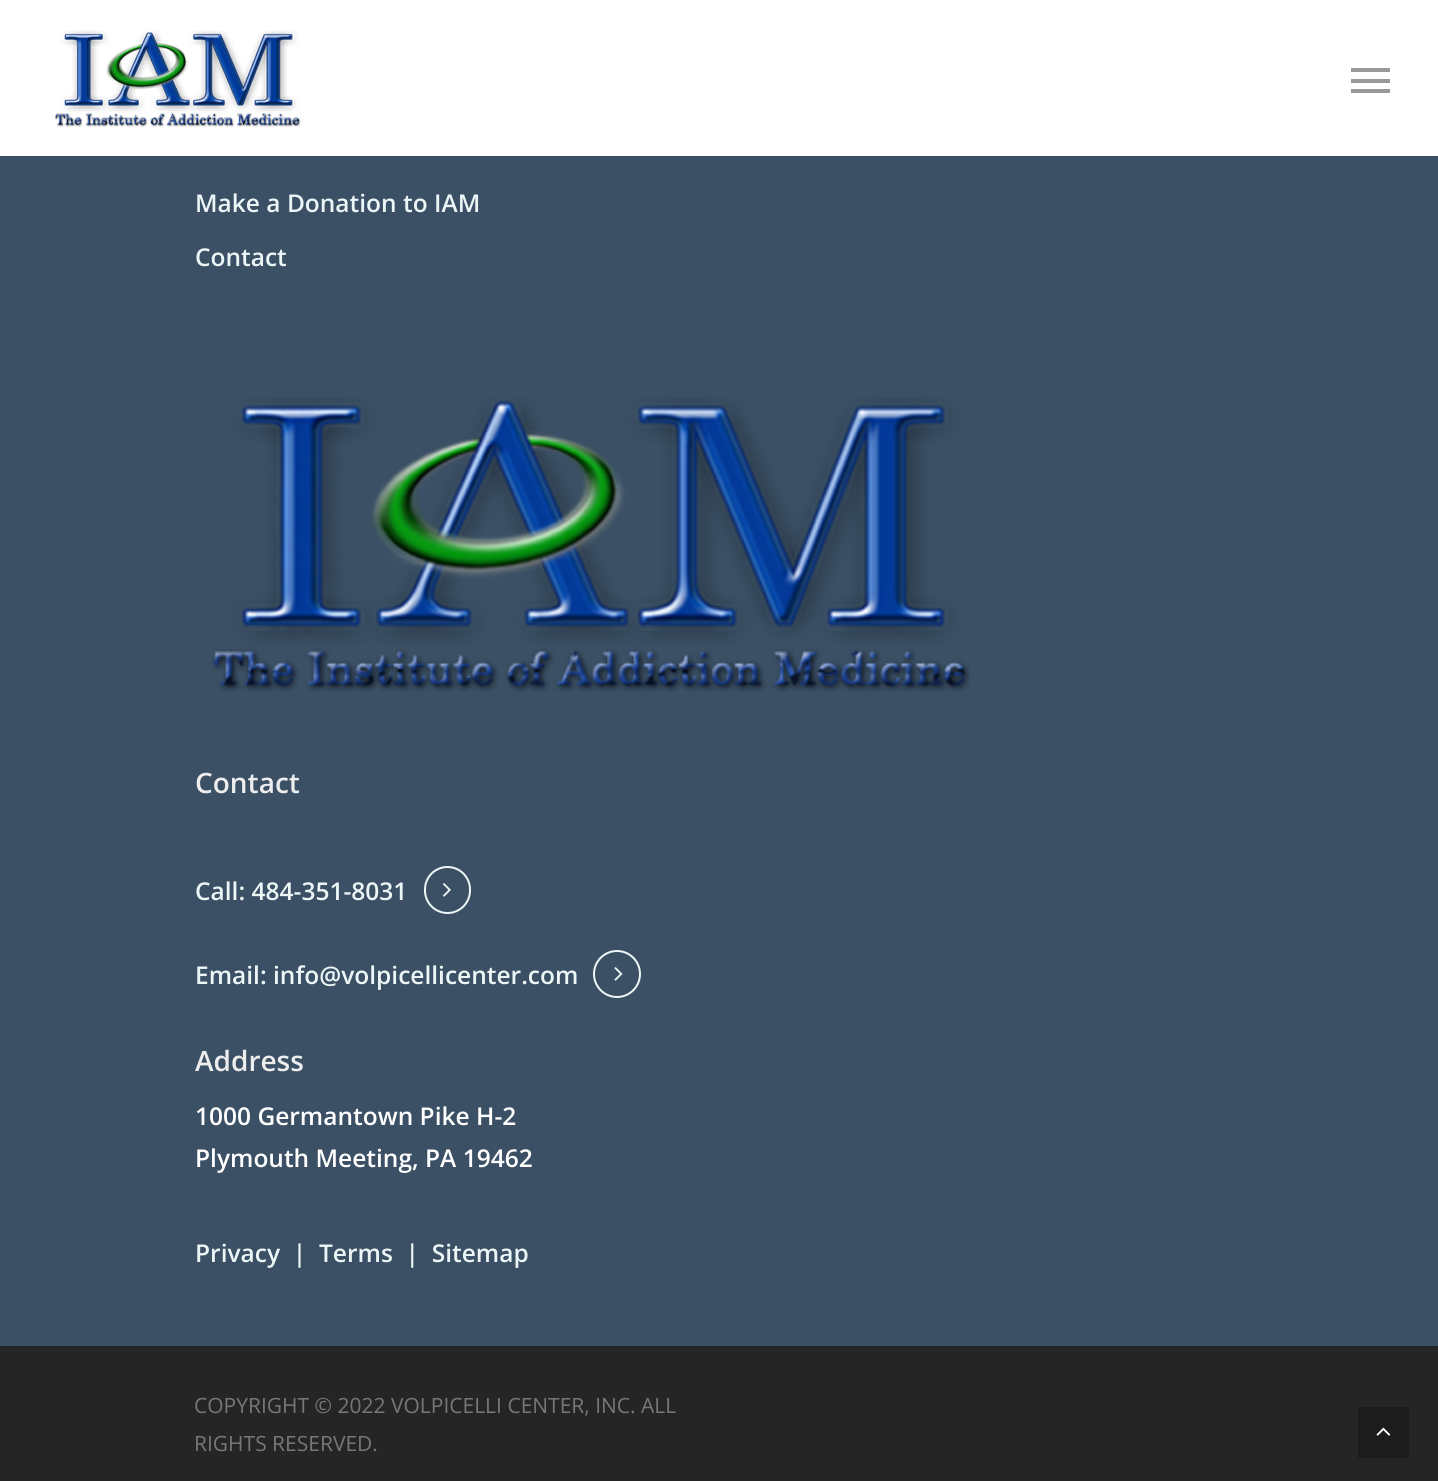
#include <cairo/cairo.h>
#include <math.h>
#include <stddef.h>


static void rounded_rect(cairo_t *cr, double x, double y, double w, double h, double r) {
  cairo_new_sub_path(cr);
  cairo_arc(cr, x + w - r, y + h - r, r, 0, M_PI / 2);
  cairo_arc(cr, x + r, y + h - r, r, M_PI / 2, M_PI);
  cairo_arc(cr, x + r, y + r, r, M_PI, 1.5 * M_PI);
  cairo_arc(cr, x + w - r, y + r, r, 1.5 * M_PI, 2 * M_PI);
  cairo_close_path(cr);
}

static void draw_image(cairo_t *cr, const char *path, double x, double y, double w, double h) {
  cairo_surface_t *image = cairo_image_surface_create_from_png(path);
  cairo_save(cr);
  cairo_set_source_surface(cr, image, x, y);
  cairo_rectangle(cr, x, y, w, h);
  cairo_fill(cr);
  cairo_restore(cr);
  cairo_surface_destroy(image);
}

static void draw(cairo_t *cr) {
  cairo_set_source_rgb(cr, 37 / 255.0, 37 / 255.0, 37 / 255.0);
  cairo_paint(cr);
  cairo_set_source_rgb(cr, 1, 1, 1);
  cairo_rectangle(cr, 0, 0, 1438, 156);
  cairo_fill(cr);
  draw_image(cr, "images/1.png", 55, 30, 246, 97);
  cairo_set_source_rgb(cr, 153 / 255.0, 153 / 255.0, 153 / 255.0);
  cairo_rectangle(cr, 1351, 68, 39, 4);
  cairo_fill(cr);
  cairo_rectangle(cr, 1351, 89, 39, 4);
  cairo_fill(cr);
  cairo_rectangle(cr, 1351, 79, 39, 4);
  cairo_fill(cr);
  cairo_set_source_rgb(cr, 59 / 255.0, 80 / 255.0, 101 / 255.0);
  cairo_rectangle(cr, 0, 156, 1438, 1190);
  cairo_fill(cr);
  draw_image(cr, "images/2.png", 212, 397, 758, 295);
  draw_image(cr, "images/3.png", 443, 883, 8, 14);
  rounded_rect(cr, 425, 867, 45, 46, 22.5);
  cairo_set_source_rgb(cr, 236 / 255.0, 246 / 255.0, 246 / 255.0);
  cairo_stroke(cr);
  draw_image(cr, "images/4.png", 614, 967, 9, 14);
  cairo_arc(cr, 617, 974, 23, 0, 2 * M_PI);
  cairo_stroke(cr);
  cairo_set_source_rgb(cr, 28 / 255.0, 28 / 255.0, 28 / 255.0);
  cairo_rectangle(cr, 1358, 1407, 51, 51);
  cairo_fill(cr);
  draw_image(cr, "images/5.png", 1376, 1427, 15, 9);
  cairo_select_font_face(cr, "Open Sans SemiBold", CAIRO_FONT_SLANT_NORMAL, CAIRO_FONT_WEIGHT_NORMAL);
  cairo_set_font_size(cr, 24.5);
  cairo_set_source_rgb(cr, 236 / 255.0, 246 / 255.0, 246 / 255.0);
  cairo_move_to(cr, 195, 212);
  cairo_show_text(cr, "Make a Donation to IAM");
  cairo_move_to(cr, 195, 266);
  cairo_show_text(cr, "Contact");
  cairo_set_font_size(cr, 28);
  cairo_set_source_rgb(cr, 237 / 255.0, 237 / 255.0, 237 / 255.0);
  cairo_move_to(cr, 195, 793);
  cairo_show_text(cr, "Contact");
  cairo_set_font_size(cr, 24.5);
  cairo_set_source_rgb(cr, 236 / 255.0, 246 / 255.0, 246 / 255.0);
  cairo_move_to(cr, 195, 900);
  cairo_show_text(cr, "Call: 484-351-8031");
  cairo_move_to(cr, 195, 984);
  cairo_show_text(cr, "Email: info@volpicellicenter.com");
  cairo_set_font_size(cr, 28);
  cairo_set_source_rgb(cr, 237 / 255.0, 237 / 255.0, 237 / 255.0);
  cairo_move_to(cr, 195, 1071);
  cairo_show_text(cr, "Address");
  cairo_set_font_size(cr, 24.5);
  cairo_set_source_rgb(cr, 1, 1, 1);
  cairo_move_to(cr, 195, 1125);
  cairo_show_text(cr, "1000 Germantown Pike H-2");
  cairo_move_to(cr, 195, 1167);
  cairo_show_text(cr, "Plymouth Meeting, PA 19462");
  cairo_set_source_rgb(cr, 236 / 255.0, 246 / 255.0, 246 / 255.0);
  cairo_move_to(cr, 195, 1262);
  cairo_show_text(cr, "Privacy  |  Terms  |  Sitemap");
  cairo_select_font_face(cr, "Open Sans", CAIRO_FONT_SLANT_NORMAL, CAIRO_FONT_WEIGHT_NORMAL);
  cairo_set_font_size(cr, 21);
  cairo_set_source_rgb(cr, 119 / 255.0, 119 / 255.0, 119 / 255.0);
  cairo_move_to(cr, 194, 1413);
  cairo_show_text(cr, "COPYRIGHT © 2022 VOLPICELLI CENTER, INC. ALL");
  cairo_move_to(cr, 194, 1451);
  cairo_show_text(cr, "RIGHTS RESERVED.");
}

int main(void) {
  cairo_surface_t *surface = cairo_image_surface_create(CAIRO_FORMAT_RGB24, 1438, 1481);
  cairo_t *cr = cairo_create(surface);
  cairo_font_options_t *options = cairo_font_options_create();
  cairo_font_options_set_hint_metrics(options, CAIRO_HINT_METRICS_OFF);
  cairo_font_options_set_hint_style(options, CAIRO_HINT_STYLE_NONE);
  cairo_set_font_options(cr, options);
  cairo_set_miter_limit(cr, 4);
  draw(cr);
  cairo_surface_write_to_png(surface, "out.png");
  cairo_font_options_destroy(options);
  cairo_destroy(cr);
  cairo_surface_destroy(surface);
  return 0;
}
